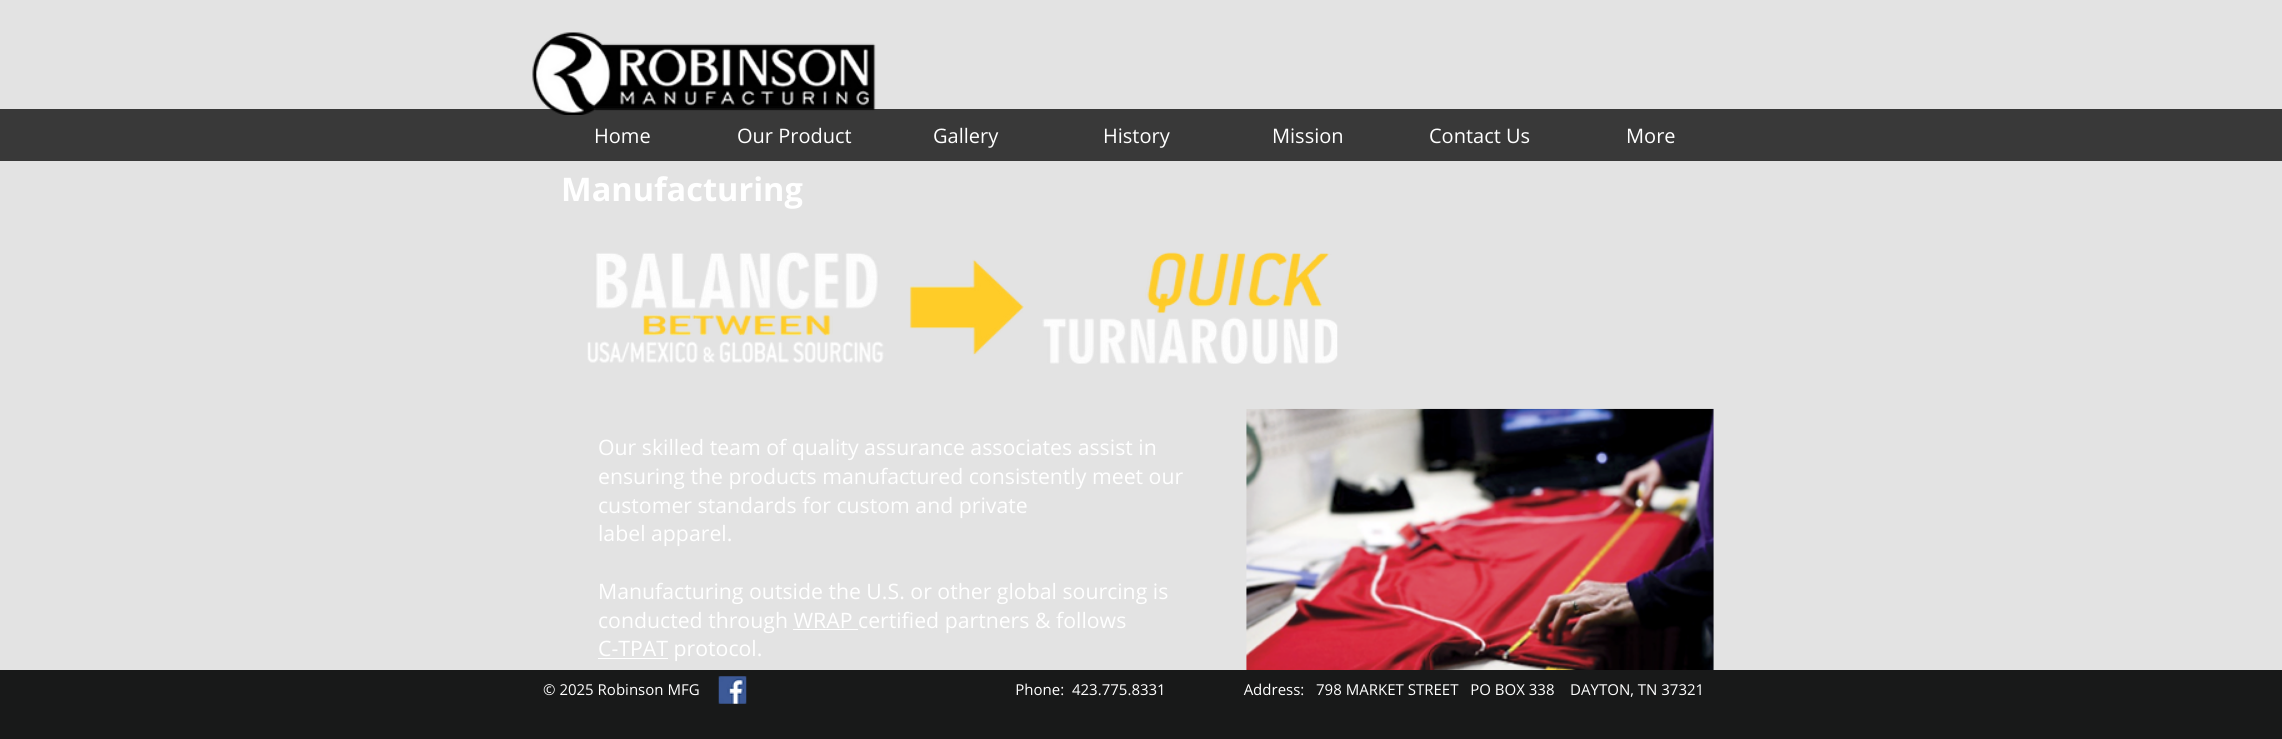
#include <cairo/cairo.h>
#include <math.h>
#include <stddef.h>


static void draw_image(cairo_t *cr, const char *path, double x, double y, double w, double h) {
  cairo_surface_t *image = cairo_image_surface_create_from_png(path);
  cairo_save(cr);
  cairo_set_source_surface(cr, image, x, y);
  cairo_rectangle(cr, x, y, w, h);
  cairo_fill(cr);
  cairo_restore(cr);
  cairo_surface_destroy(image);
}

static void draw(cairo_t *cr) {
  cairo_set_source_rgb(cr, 227 / 255.0, 227 / 255.0, 227 / 255.0);
  cairo_paint(cr);
  cairo_set_source_rgb(cr, 57 / 255.0, 57 / 255.0, 57 / 255.0);
  cairo_rectangle(cr, 0, 109, 2282, 52);
  cairo_fill(cr);
  draw_image(cr, "images/1.png", 532, 32, 344, 83);
  draw_image(cr, "images/2.png", 587, 252, 751, 112);
  cairo_set_source_rgb(cr, 1, 1, 1);
  cairo_rectangle(cr, 793, 629, 65, 1);
  cairo_fill(cr);
  cairo_rectangle(cr, 598, 658, 70, 1);
  cairo_fill(cr);
  draw_image(cr, "images/3.png", 1246, 408, 468, 262);
  cairo_set_source_rgb(cr, 24 / 255.0, 25 / 255.0, 25 / 255.0);
  cairo_rectangle(cr, 0, 670, 2282, 69);
  cairo_fill(cr);
  cairo_select_font_face(cr, "Open Sans", CAIRO_FONT_SLANT_NORMAL, CAIRO_FONT_WEIGHT_NORMAL);
  cairo_set_font_size(cr, 20);
  cairo_set_source_rgb(cr, 1, 1, 1);
  cairo_move_to(cr, 594, 143);
  cairo_show_text(cr, "Home");
  cairo_move_to(cr, 737, 143);
  cairo_show_text(cr, "Our Product");
  cairo_move_to(cr, 933, 143);
  cairo_show_text(cr, "Gallery");
  cairo_move_to(cr, 1103, 143);
  cairo_show_text(cr, "History");
  cairo_move_to(cr, 1272, 143);
  cairo_show_text(cr, "Mission");
  cairo_move_to(cr, 1429, 143);
  cairo_show_text(cr, "Contact Us");
  cairo_move_to(cr, 1626, 143);
  cairo_show_text(cr, "More");
  cairo_select_font_face(cr, "Open Sans", CAIRO_FONT_SLANT_NORMAL, CAIRO_FONT_WEIGHT_BOLD);
  cairo_set_font_size(cr, 32.5);
  cairo_move_to(cr, 561, 201);
  cairo_show_text(cr, "Manufacturing");
  cairo_select_font_face(cr, "Open Sans", CAIRO_FONT_SLANT_NORMAL, CAIRO_FONT_WEIGHT_NORMAL);
  cairo_set_font_size(cr, 21.25);
  cairo_move_to(cr, 598, 455);
  cairo_show_text(cr, "Our skilled team of quality assurance associates assist in");
  cairo_move_to(cr, 598, 484);
  cairo_show_text(cr, "ensuring the products manufactured consistently meet our");
  cairo_move_to(cr, 598, 513);
  cairo_show_text(cr, "customer standards for custom and private");
  cairo_move_to(cr, 598, 541);
  cairo_show_text(cr, "label apparel.");
  cairo_move_to(cr, 598, 599);
  cairo_show_text(cr, "Manufacturing outside the U.S. or other global sourcing is");
  cairo_move_to(cr, 598, 628);
  cairo_show_text(cr, "conducted through WRAP certified partners & follows");
  cairo_move_to(cr, 598, 656);
  cairo_show_text(cr, "C-TPAT protocol.");
  cairo_set_font_size(cr, 15);
  cairo_move_to(cr, 543, 695);
  cairo_show_text(cr, "© 2025 Robinson MFG                                                                                 Phone:  423.775.8331                    Address:   798 MARKET STREET   PO BOX 338    DAYTON, TN 37321");
  draw_image(cr, "images/4.png", 718, 676, 29, 28);
}

int main(void) {
  cairo_surface_t *surface = cairo_image_surface_create(CAIRO_FORMAT_RGB24, 2282, 739);
  cairo_t *cr = cairo_create(surface);
  cairo_font_options_t *options = cairo_font_options_create();
  cairo_font_options_set_hint_metrics(options, CAIRO_HINT_METRICS_OFF);
  cairo_font_options_set_hint_style(options, CAIRO_HINT_STYLE_NONE);
  cairo_set_font_options(cr, options);
  cairo_set_miter_limit(cr, 4);
  draw(cr);
  cairo_surface_write_to_png(surface, "out.png");
  cairo_font_options_destroy(options);
  cairo_destroy(cr);
  cairo_surface_destroy(surface);
  return 0;
}
